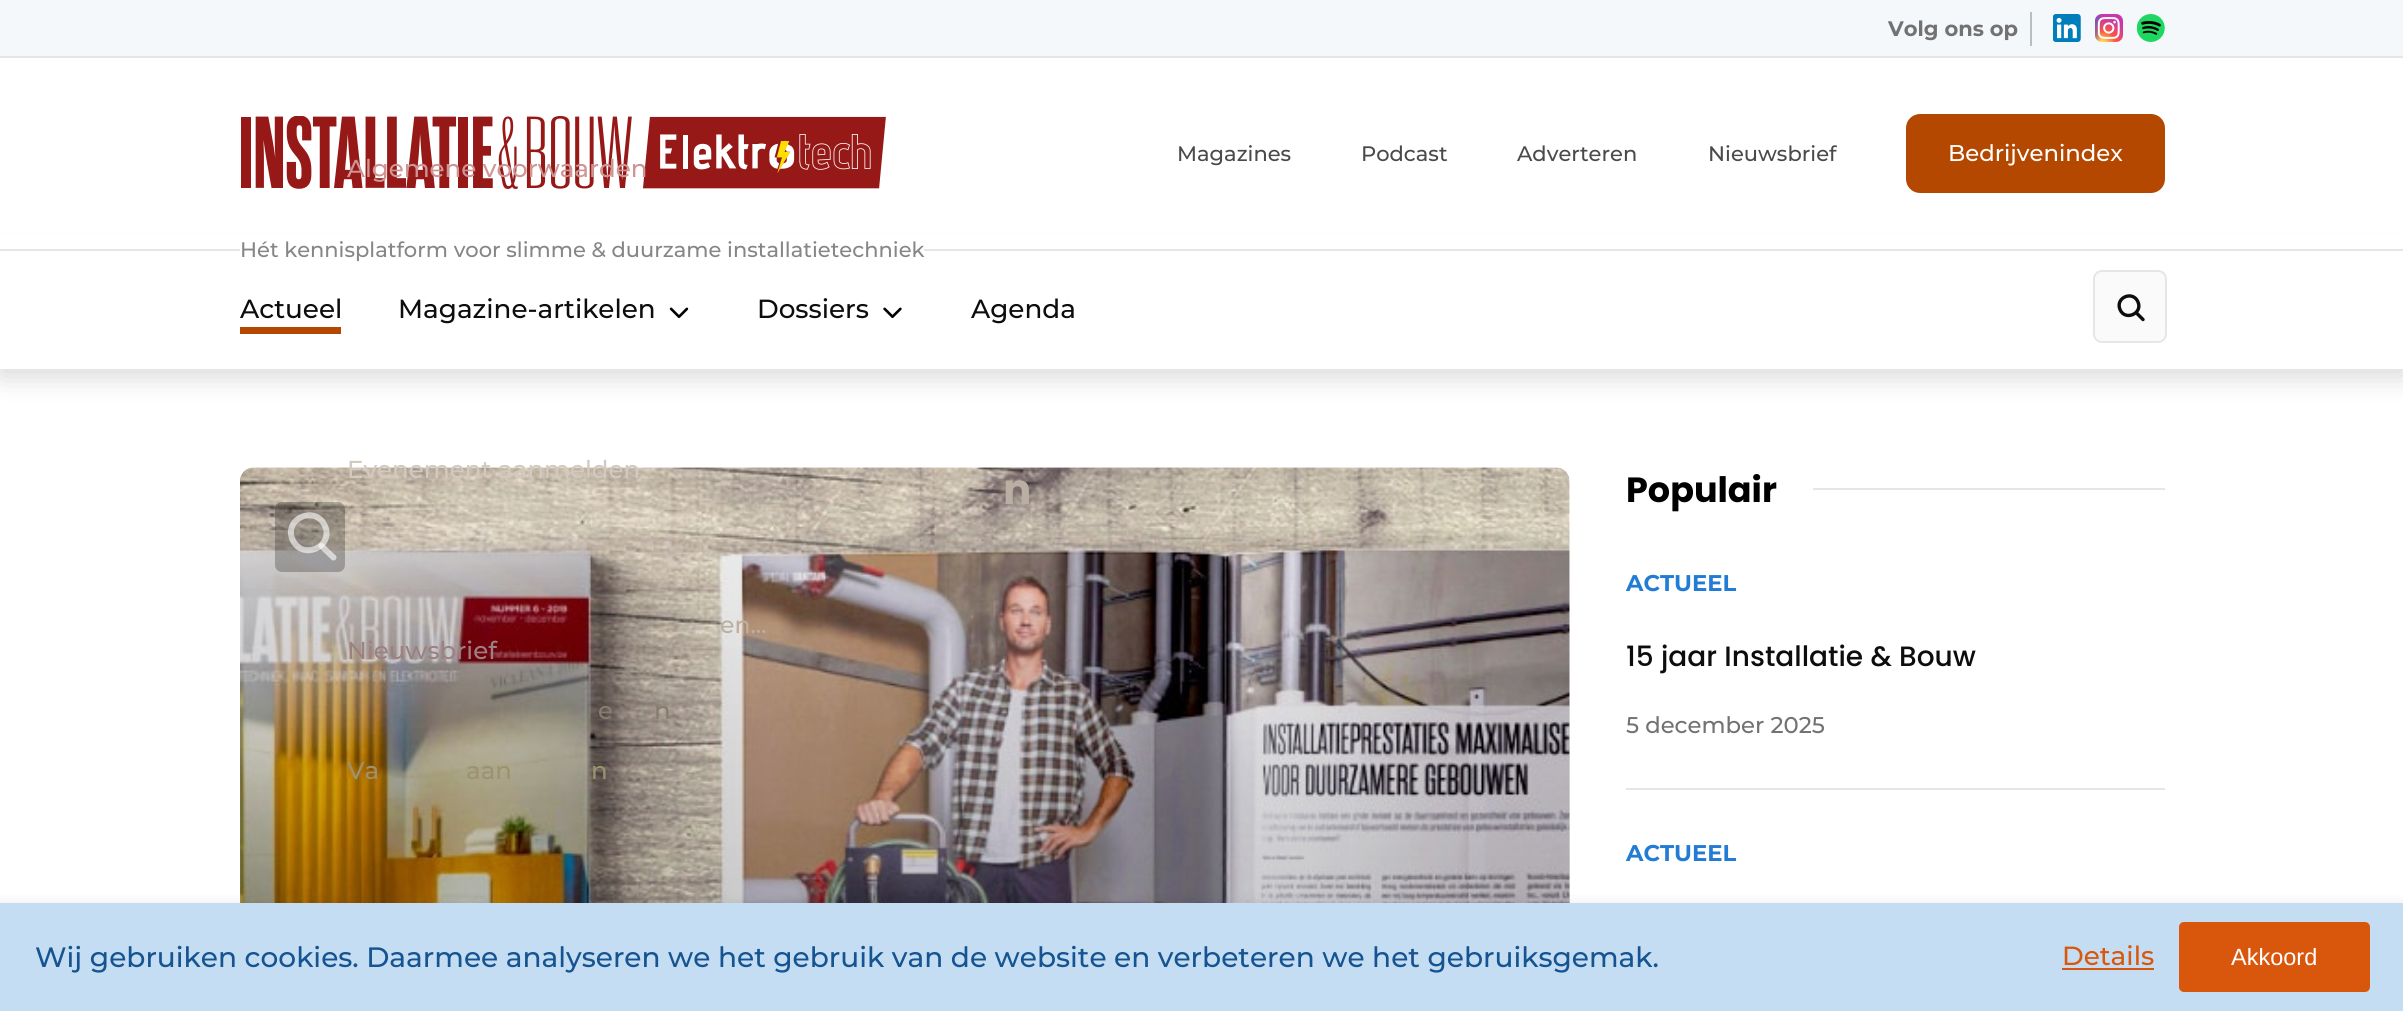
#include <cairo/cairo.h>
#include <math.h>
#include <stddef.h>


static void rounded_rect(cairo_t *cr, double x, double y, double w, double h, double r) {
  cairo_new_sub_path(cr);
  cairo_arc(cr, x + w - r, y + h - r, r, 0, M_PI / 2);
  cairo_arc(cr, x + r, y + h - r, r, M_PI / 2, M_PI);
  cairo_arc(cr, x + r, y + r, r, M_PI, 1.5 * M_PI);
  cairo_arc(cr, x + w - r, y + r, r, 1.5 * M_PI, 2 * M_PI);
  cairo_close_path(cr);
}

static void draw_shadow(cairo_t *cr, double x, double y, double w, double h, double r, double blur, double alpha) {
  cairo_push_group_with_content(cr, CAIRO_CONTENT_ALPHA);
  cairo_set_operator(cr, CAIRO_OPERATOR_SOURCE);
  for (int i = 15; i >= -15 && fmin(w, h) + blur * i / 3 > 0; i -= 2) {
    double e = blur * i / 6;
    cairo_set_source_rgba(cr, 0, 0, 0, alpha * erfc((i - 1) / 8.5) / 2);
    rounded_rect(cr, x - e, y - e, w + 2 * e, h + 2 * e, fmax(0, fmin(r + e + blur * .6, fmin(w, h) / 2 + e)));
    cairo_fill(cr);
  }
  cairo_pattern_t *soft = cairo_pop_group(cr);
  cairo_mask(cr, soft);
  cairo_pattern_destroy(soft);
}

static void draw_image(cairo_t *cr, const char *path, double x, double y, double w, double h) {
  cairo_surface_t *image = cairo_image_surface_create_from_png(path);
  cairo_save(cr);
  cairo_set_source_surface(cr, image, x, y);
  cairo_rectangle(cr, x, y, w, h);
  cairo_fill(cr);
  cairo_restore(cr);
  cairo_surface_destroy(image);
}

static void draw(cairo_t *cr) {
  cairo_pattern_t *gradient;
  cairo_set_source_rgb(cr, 1, 1, 1);
  cairo_paint(cr);
  cairo_set_source_rgb(cr, 245 / 255.0, 248 / 255.0, 250 / 255.0);
  cairo_rectangle(cr, 0, 0, 2403, 56);
  cairo_fill(cr);
  cairo_set_source_rgb(cr, 230 / 255.0, 230 / 255.0, 230 / 255.0);
  cairo_rectangle(cr, 0, 56, 2403, 2);
  cairo_fill(cr);
  cairo_set_source_rgb(cr, 184 / 255.0, 191 / 255.0, 194 / 255.0);
  cairo_rectangle(cr, 2030, 12, 2, 34);
  cairo_fill(cr);
  draw_image(cr, "images/1.png", 2053, 14, 28, 28);
  draw_image(cr, "images/2.png", 2095, 14, 28, 28);
  draw_image(cr, "images/3.png", 2137, 14, 28, 28);
  draw_image(cr, "images/4.png", 241, 116, 645, 73);
  cairo_set_source_rgb(cr, 180 / 255.0, 72 / 255.0, 0);
  rounded_rect(cr, 1906, 114, 259, 79, 14);
  cairo_fill(cr);
  cairo_set_source_rgb(cr, 0, 0, 0);
  draw_shadow(cr, 0, 257, 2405, 119, 0, 14, 0.16);
  cairo_set_source_rgb(cr, 1, 1, 1);
  cairo_rectangle(cr, 0, 236, 2403, 13);
  cairo_fill(cr);
  cairo_set_source_rgb(cr, 230 / 255.0, 230 / 255.0, 230 / 255.0);
  cairo_rectangle(cr, 0, 249, 2403, 2);
  cairo_fill(cr);
  cairo_set_source_rgb(cr, 1, 1, 1);
  cairo_rectangle(cr, 240, 249, 684, 2);
  cairo_fill(cr);
  cairo_rectangle(cr, 0, 251, 2403, 118);
  cairo_fill(cr);
  cairo_set_source_rgb(cr, 180 / 255.0, 72 / 255.0, 0);
  cairo_rectangle(cr, 240, 327, 101, 7);
  cairo_fill(cr);
  draw_image(cr, "images/5.png", 669, 307, 20, 11);
  draw_image(cr, "images/6.png", 883, 307, 19, 11);
  cairo_set_source_rgb(cr, 250 / 255.0, 250 / 255.0, 250 / 255.0);
  rounded_rect(cr, 2095, 271, 70, 70, 7);
  cairo_fill(cr);
  cairo_new_path(cr);
  cairo_move_to(cr, 2120, 309.5);
  cairo_curve_to(cr, 2125, 321.5, 2143, 313.5, 2138, 302);
  cairo_curve_to(cr, 2133, 290, 2115, 297.5, 2120, 309.5);
  cairo_close_path(cr);
  cairo_move_to(cr, 2136.5, 313);
  cairo_line_to(cr, 2143, 319.5);
  cairo_set_source_rgb(cr, 13 / 255.0, 13 / 255.0, 13 / 255.0);
  cairo_set_line_width(cr, 3.4);
  cairo_set_line_cap(cr, CAIRO_LINE_CAP_ROUND);
  cairo_set_line_join(cr, CAIRO_LINE_JOIN_ROUND);
  cairo_stroke(cr);
  rounded_rect(cr, 2094, 271, 72, 71, 8);
  cairo_set_source_rgb(cr, 230 / 255.0, 230 / 255.0, 230 / 255.0);
  cairo_set_line_width(cr, 2);
  cairo_set_line_cap(cr, CAIRO_LINE_CAP_BUTT);
  cairo_set_line_join(cr, CAIRO_LINE_JOIN_MITER);
  cairo_stroke(cr);
  draw_image(cr, "images/7.png", 240, 467, 1330, 436);
  gradient = cairo_pattern_create_linear(905, 467, 905, 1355);
  cairo_pattern_add_color_stop_rgba(gradient, 0, 0, 0, 0, 0);
  cairo_pattern_add_color_stop_rgba(gradient, 1, 0, 0, 0, 0.3);
  cairo_set_source(cr, gradient);
  cairo_pattern_destroy(gradient);
  cairo_rectangle(cr, 240, 531, 1330, 372);
  cairo_fill(cr);
  cairo_set_source_rgba(cr, 0, 0, 0, 0.24);
  rounded_rect(cr, 275, 502, 70, 70, 7);
  cairo_fill(cr);
  cairo_new_path(cr);
  cairo_move_to(cr, 292.5, 539.5);
  cairo_curve_to(cr, 302, 561, 334, 547, 325, 526);
  cairo_curve_to(cr, 315.5, 504.5, 283.5, 518.5, 292.5, 539.5);
  cairo_close_path(cr);
  cairo_set_source_rgba(cr, 1, 1, 1, 0.6);
  cairo_set_line_width(cr, 6);
  cairo_set_line_cap(cr, CAIRO_LINE_CAP_ROUND);
  cairo_set_line_join(cr, CAIRO_LINE_JOIN_ROUND);
  cairo_stroke(cr);
  cairo_new_path(cr);
  cairo_move_to(cr, 321.5, 546);
  cairo_line_to(cr, 333.5, 557.5);
  cairo_stroke(cr);
  cairo_set_source_rgb(cr, 230 / 255.0, 230 / 255.0, 230 / 255.0);
  cairo_rectangle(cr, 1813, 488, 352, 2);
  cairo_fill(cr);
  cairo_rectangle(cr, 1626, 788, 539, 2);
  cairo_fill(cr);
  cairo_set_source_rgb(cr, 0, 0, 0);
  draw_shadow(cr, -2, 901, 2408, 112, 0, 5, 0.06);
  cairo_set_source_rgb(cr, 196 / 255.0, 221 / 255.0, 242 / 255.0);
  cairo_rectangle(cr, 0, 903, 2403, 108);
  cairo_fill(cr);
  cairo_set_source_rgb(cr, 217 / 255.0, 87 / 255.0, 12 / 255.0);
  cairo_rectangle(cr, 2062, 968, 92, 2);
  cairo_fill(cr);
  rounded_rect(cr, 2179, 922, 191, 70, 5);
  cairo_fill(cr);
  cairo_select_font_face(cr, "Montserrat", CAIRO_FONT_SLANT_NORMAL, CAIRO_FONT_WEIGHT_BOLD);
  cairo_set_font_size(cr, 21);
  cairo_set_source_rgb(cr, 114 / 255.0, 114 / 255.0, 114 / 255.0);
  cairo_move_to(cr, 1888, 36);
  cairo_show_text(cr, "Volg ons op");
  cairo_select_font_face(cr, "Montserrat Medium", CAIRO_FONT_SLANT_NORMAL, CAIRO_FONT_WEIGHT_NORMAL);
  cairo_set_source_rgb(cr, 74 / 255.0, 74 / 255.0, 74 / 255.0);
  cairo_move_to(cr, 1177, 161);
  cairo_show_text(cr, "Magazines");
  cairo_move_to(cr, 1361, 161);
  cairo_show_text(cr, "Podcast");
  cairo_move_to(cr, 1517, 161);
  cairo_show_text(cr, "Adverteren");
  cairo_move_to(cr, 1708, 161);
  cairo_show_text(cr, "Nieuwsbrief");
  cairo_set_font_size(cr, 22.75);
  cairo_set_source_rgb(cr, 1, 1, 1);
  cairo_move_to(cr, 1948, 161);
  cairo_show_text(cr, "Bedrijvenindex");
  cairo_set_font_size(cr, 21);
  cairo_set_source_rgb(cr, 134 / 255.0, 134 / 255.0, 134 / 255.0);
  cairo_move_to(cr, 240, 257);
  cairo_show_text(cr, "Hét kennisplatform voor slimme & duurzame installatietechniek");
  cairo_set_font_size(cr, 24.5);
  cairo_set_source_rgb(cr, 206 / 255.0, 149 / 255.0, 148 / 255.0);
  cairo_move_to(cr, 347, 177);
  cairo_show_text(cr, "Algemene voorwaarden");
  cairo_set_source_rgb(cr, 210 / 255.0, 202 / 255.0, 191 / 255.0);
  cairo_move_to(cr, 347, 478);
  cairo_show_text(cr, "Evenement aanmelden");
  cairo_set_source_rgb(cr, 159 / 255.0, 128 / 255.0, 129 / 255.0);
  cairo_move_to(cr, 347, 659);
  cairo_show_text(cr, "Nieuwsbrief");
  cairo_set_source_rgb(cr, 135 / 255.0, 125 / 255.0, 111 / 255.0);
  cairo_move_to(cr, 598, 719);
  cairo_show_text(cr, "e");
  cairo_move_to(cr, 654, 719);
  cairo_show_text(cr, "n");
  cairo_set_source_rgb(cr, 158 / 255.0, 145 / 255.0, 111 / 255.0);
  cairo_move_to(cr, 347, 779);
  cairo_show_text(cr, "Va");
  cairo_move_to(cr, 466, 779);
  cairo_show_text(cr, "aan");
  cairo_move_to(cr, 591, 779);
  cairo_show_text(cr, "n");
  cairo_set_font_size(cr, 26.25);
  cairo_set_source_rgb(cr, 13 / 255.0, 13 / 255.0, 13 / 255.0);
  cairo_move_to(cr, 240, 318);
  cairo_show_text(cr, "Actueel");
  cairo_move_to(cr, 398, 318);
  cairo_show_text(cr, "Magazine-artikelen");
  cairo_move_to(cr, 757, 318);
  cairo_show_text(cr, "Dossiers");
  cairo_move_to(cr, 971, 318);
  cairo_show_text(cr, "Agenda");
  cairo_select_font_face(cr, "Poppins", CAIRO_FONT_SLANT_NORMAL, CAIRO_FONT_WEIGHT_BOLD);
  cairo_set_font_size(cr, 42);
  cairo_set_source_rgb(cr, 186 / 255.0, 175 / 255.0, 162 / 255.0);
  cairo_move_to(cr, 1003, 504);
  cairo_show_text(cr, "n");
  cairo_select_font_face(cr, "Montserrat Medium", CAIRO_FONT_SLANT_NORMAL, CAIRO_FONT_WEIGHT_NORMAL);
  cairo_set_font_size(cr, 23.5);
  cairo_move_to(cr, 720, 633);
  cairo_show_text(cr, "en...");
  cairo_select_font_face(cr, "Poppins", CAIRO_FONT_SLANT_NORMAL, CAIRO_FONT_WEIGHT_BOLD);
  cairo_set_font_size(cr, 35);
  cairo_set_source_rgb(cr, 0, 0, 0);
  cairo_move_to(cr, 1626, 502);
  cairo_show_text(cr, "Populair");
  cairo_select_font_face(cr, "Montserrat", CAIRO_FONT_SLANT_NORMAL, CAIRO_FONT_WEIGHT_BOLD);
  cairo_set_font_size(cr, 22.75);
  cairo_set_source_rgb(cr, 34 / 255.0, 123 / 255.0, 212 / 255.0);
  cairo_move_to(cr, 1626, 591);
  cairo_show_text(cr, "ACTUEEL");
  cairo_select_font_face(cr, "Poppins Medium", CAIRO_FONT_SLANT_NORMAL, CAIRO_FONT_WEIGHT_NORMAL);
  cairo_set_font_size(cr, 28);
  cairo_set_source_rgb(cr, 13 / 255.0, 13 / 255.0, 13 / 255.0);
  cairo_move_to(cr, 1626, 666);
  cairo_show_text(cr, "15 jaar Installatie & Bouw");
  cairo_select_font_face(cr, "Montserrat Medium", CAIRO_FONT_SLANT_NORMAL, CAIRO_FONT_WEIGHT_NORMAL);
  cairo_set_font_size(cr, 22.75);
  cairo_set_source_rgb(cr, 114 / 255.0, 114 / 255.0, 114 / 255.0);
  cairo_move_to(cr, 1626, 733);
  cairo_show_text(cr, "5 december 2025");
  cairo_select_font_face(cr, "Montserrat", CAIRO_FONT_SLANT_NORMAL, CAIRO_FONT_WEIGHT_BOLD);
  cairo_set_source_rgb(cr, 34 / 255.0, 123 / 255.0, 212 / 255.0);
  cairo_move_to(cr, 1626, 861);
  cairo_show_text(cr, "ACTUEEL");
  cairo_select_font_face(cr, "Montserrat Medium", CAIRO_FONT_SLANT_NORMAL, CAIRO_FONT_WEIGHT_NORMAL);
  cairo_set_font_size(cr, 28);
  cairo_set_source_rgb(cr, 21 / 255.0, 83 / 255.0, 145 / 255.0);
  cairo_move_to(cr, 35, 967);
  cairo_show_text(cr, "Wij gebruiken cookies. Daarmee analyseren we het gebruik van de website en verbeteren we het gebruiksgemak.");
  cairo_set_font_size(cr, 26.25);
  cairo_set_source_rgb(cr, 217 / 255.0, 87 / 255.0, 12 / 255.0);
  cairo_move_to(cr, 2062, 965);
  cairo_show_text(cr, "Details");
  cairo_select_font_face(cr, "Liberation Sans", CAIRO_FONT_SLANT_NORMAL, CAIRO_FONT_WEIGHT_NORMAL);
  cairo_set_font_size(cr, 23.5);
  cairo_set_source_rgb(cr, 1, 1, 1);
  cairo_move_to(cr, 2231, 965);
  cairo_show_text(cr, "Akkoord");
}

int main(void) {
  cairo_surface_t *surface = cairo_image_surface_create(CAIRO_FORMAT_RGB24, 2403, 1011);
  cairo_t *cr = cairo_create(surface);
  cairo_font_options_t *options = cairo_font_options_create();
  cairo_font_options_set_hint_metrics(options, CAIRO_HINT_METRICS_OFF);
  cairo_font_options_set_hint_style(options, CAIRO_HINT_STYLE_NONE);
  cairo_set_font_options(cr, options);
  cairo_set_miter_limit(cr, 4);
  draw(cr);
  cairo_surface_write_to_png(surface, "out.png");
  cairo_font_options_destroy(options);
  cairo_destroy(cr);
  cairo_surface_destroy(surface);
  return 0;
}
